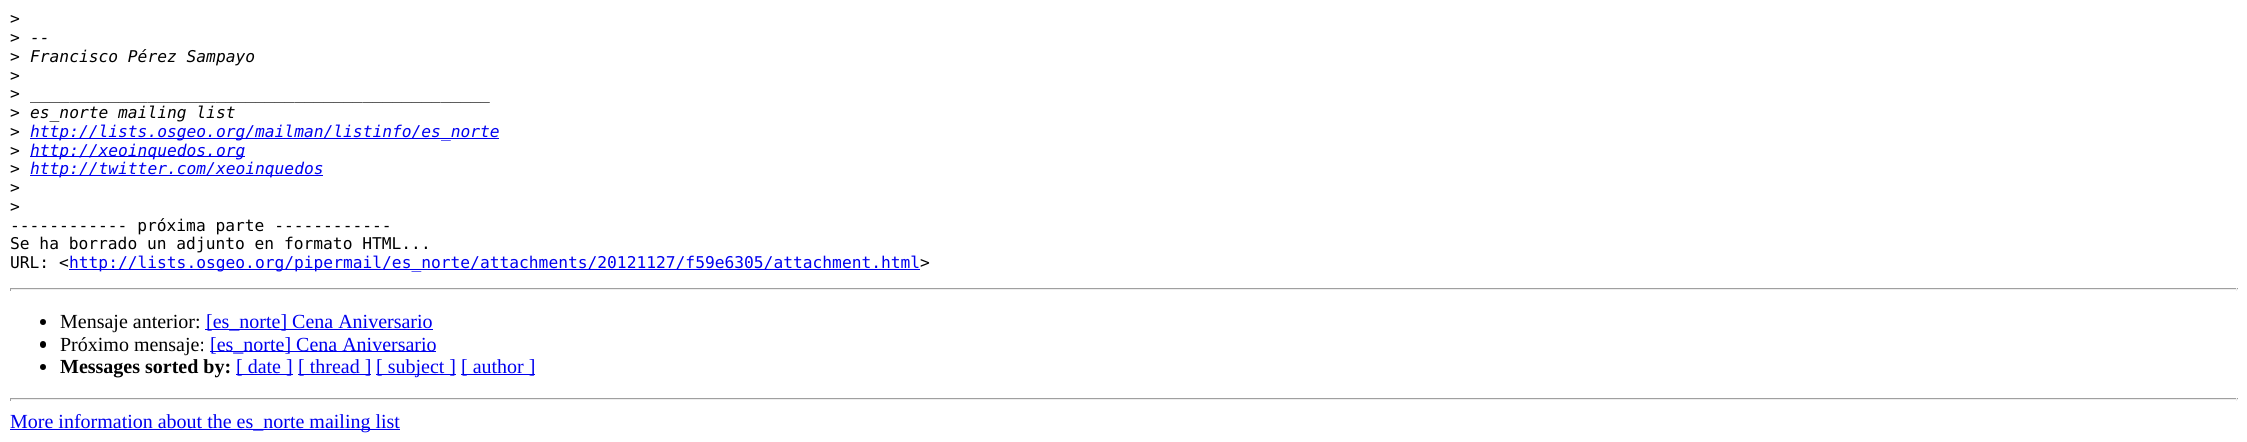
#include <cairo/cairo.h>
#include <math.h>
#include <stddef.h>


static void rounded_rect(cairo_t *cr, double x, double y, double w, double h, double r) {
  cairo_new_sub_path(cr);
  cairo_arc(cr, x + w - r, y + h - r, r, 0, M_PI / 2);
  cairo_arc(cr, x + r, y + h - r, r, M_PI / 2, M_PI);
  cairo_arc(cr, x + r, y + r, r, M_PI, 1.5 * M_PI);
  cairo_arc(cr, x + w - r, y + r, r, 1.5 * M_PI, 2 * M_PI);
  cairo_close_path(cr);
}

static void draw(cairo_t *cr) {
  cairo_set_source_rgb(cr, 1, 1, 1);
  cairo_paint(cr);
  cairo_set_source_rgb(cr, 0, 0, 238 / 255.0);
  cairo_rectangle(cr, 30, 138, 469, 1);
  cairo_fill(cr);
  cairo_rectangle(cr, 30, 156, 215, 1);
  cairo_fill(cr);
  cairo_rectangle(cr, 30, 175, 293, 1);
  cairo_fill(cr);
  cairo_rectangle(cr, 69, 269, 851, 1);
  cairo_fill(cr);
  cairo_set_source_rgb(cr, 159 / 255.0, 159 / 255.0, 159 / 255.0);
  cairo_rectangle(cr, 10, 288, 2228, 1);
  cairo_fill(cr);
  cairo_set_source_rgb(cr, 238 / 255.0, 238 / 255.0, 238 / 255.0);
  cairo_rectangle(cr, 2236, 288, 1, 3);
  cairo_fill(cr);
  cairo_rectangle(cr, 10, 289, 2228, 1);
  cairo_fill(cr);
  cairo_set_source_rgb(cr, 159 / 255.0, 159 / 255.0, 159 / 255.0);
  cairo_rectangle(cr, 10, 288, 1, 3);
  cairo_fill(cr);
  cairo_set_source_rgb(cr, 0, 0, 0);
  cairo_arc(cr, 43, 322, 3, 0, 2 * M_PI);
  cairo_fill(cr);
  cairo_set_source_rgb(cr, 0, 0, 238 / 255.0);
  cairo_rectangle(cr, 205, 329, 228, 1);
  cairo_fill(cr);
  cairo_set_source_rgb(cr, 0, 0, 0);
  rounded_rect(cr, 40, 341, 6, 7, 3);
  cairo_fill(cr);
  cairo_set_source_rgb(cr, 0, 0, 238 / 255.0);
  cairo_rectangle(cr, 210, 351, 226, 1);
  cairo_fill(cr);
  cairo_set_source_rgb(cr, 0, 0, 0);
  cairo_arc(cr, 43, 367, 3, 0, 2 * M_PI);
  cairo_fill(cr);
  cairo_set_source_rgb(cr, 0, 0, 238 / 255.0);
  cairo_rectangle(cr, 236, 374, 57, 1);
  cairo_fill(cr);
  cairo_rectangle(cr, 298, 374, 73, 1);
  cairo_fill(cr);
  cairo_rectangle(cr, 376, 374, 80, 1);
  cairo_fill(cr);
  cairo_rectangle(cr, 461, 374, 74, 1);
  cairo_fill(cr);
  cairo_set_source_rgb(cr, 159 / 255.0, 159 / 255.0, 159 / 255.0);
  cairo_rectangle(cr, 10, 398, 2228, 1);
  cairo_fill(cr);
  cairo_set_source_rgb(cr, 238 / 255.0, 238 / 255.0, 238 / 255.0);
  cairo_rectangle(cr, 2236, 398, 1, 3);
  cairo_fill(cr);
  cairo_rectangle(cr, 10, 399, 2228, 1);
  cairo_fill(cr);
  cairo_set_source_rgb(cr, 159 / 255.0, 159 / 255.0, 159 / 255.0);
  cairo_rectangle(cr, 10, 398, 1, 3);
  cairo_fill(cr);
  cairo_set_source_rgb(cr, 0, 0, 238 / 255.0);
  cairo_rectangle(cr, 10, 429, 390, 1);
  cairo_fill(cr);
  cairo_select_font_face(cr, "DejaVu Sans Mono", CAIRO_FONT_SLANT_NORMAL, CAIRO_FONT_WEIGHT_NORMAL);
  cairo_set_font_size(cr, 16.25);
  cairo_set_source_rgb(cr, 0, 0, 0);
  cairo_move_to(cr, 10, 24);
  cairo_show_text(cr, ">");
  cairo_move_to(cr, 10, 43);
  cairo_show_text(cr, ">");
  cairo_select_font_face(cr, "DejaVu Sans Mono", CAIRO_FONT_SLANT_ITALIC, CAIRO_FONT_WEIGHT_NORMAL);
  cairo_move_to(cr, 30, 43);
  cairo_show_text(cr, "--");
  cairo_select_font_face(cr, "DejaVu Sans Mono", CAIRO_FONT_SLANT_NORMAL, CAIRO_FONT_WEIGHT_NORMAL);
  cairo_move_to(cr, 10, 62);
  cairo_show_text(cr, ">");
  cairo_select_font_face(cr, "DejaVu Sans Mono", CAIRO_FONT_SLANT_ITALIC, CAIRO_FONT_WEIGHT_NORMAL);
  cairo_move_to(cr, 30, 62);
  cairo_show_text(cr, "Francisco Pérez Sampayo");
  cairo_select_font_face(cr, "DejaVu Sans Mono", CAIRO_FONT_SLANT_NORMAL, CAIRO_FONT_WEIGHT_NORMAL);
  cairo_move_to(cr, 10, 81);
  cairo_show_text(cr, ">");
  cairo_move_to(cr, 10, 99);
  cairo_show_text(cr, ">");
  cairo_select_font_face(cr, "DejaVu Sans Mono", CAIRO_FONT_SLANT_ITALIC, CAIRO_FONT_WEIGHT_NORMAL);
  cairo_move_to(cr, 30, 99);
  cairo_show_text(cr, "_______________________________________________");
  cairo_select_font_face(cr, "DejaVu Sans Mono", CAIRO_FONT_SLANT_NORMAL, CAIRO_FONT_WEIGHT_NORMAL);
  cairo_move_to(cr, 10, 118);
  cairo_show_text(cr, ">");
  cairo_select_font_face(cr, "DejaVu Sans Mono", CAIRO_FONT_SLANT_ITALIC, CAIRO_FONT_WEIGHT_NORMAL);
  cairo_move_to(cr, 30, 118);
  cairo_show_text(cr, "es_norte mailing list");
  cairo_select_font_face(cr, "DejaVu Sans Mono", CAIRO_FONT_SLANT_NORMAL, CAIRO_FONT_WEIGHT_NORMAL);
  cairo_move_to(cr, 10, 137);
  cairo_show_text(cr, ">");
  cairo_select_font_face(cr, "DejaVu Sans Mono", CAIRO_FONT_SLANT_ITALIC, CAIRO_FONT_WEIGHT_NORMAL);
  cairo_set_source_rgb(cr, 0, 0, 238 / 255.0);
  cairo_move_to(cr, 30, 137);
  cairo_show_text(cr, "http://lists.osgeo.org/mailman/listinfo/es_norte");
  cairo_select_font_face(cr, "DejaVu Sans Mono", CAIRO_FONT_SLANT_NORMAL, CAIRO_FONT_WEIGHT_NORMAL);
  cairo_set_source_rgb(cr, 0, 0, 0);
  cairo_move_to(cr, 10, 156);
  cairo_show_text(cr, ">");
  cairo_select_font_face(cr, "DejaVu Sans Mono", CAIRO_FONT_SLANT_ITALIC, CAIRO_FONT_WEIGHT_NORMAL);
  cairo_set_source_rgb(cr, 0, 0, 238 / 255.0);
  cairo_move_to(cr, 30, 156);
  cairo_show_text(cr, "http://xeoinquedos.org");
  cairo_select_font_face(cr, "DejaVu Sans Mono", CAIRO_FONT_SLANT_NORMAL, CAIRO_FONT_WEIGHT_NORMAL);
  cairo_set_source_rgb(cr, 0, 0, 0);
  cairo_move_to(cr, 10, 174);
  cairo_show_text(cr, ">");
  cairo_select_font_face(cr, "DejaVu Sans Mono", CAIRO_FONT_SLANT_ITALIC, CAIRO_FONT_WEIGHT_NORMAL);
  cairo_set_source_rgb(cr, 0, 0, 238 / 255.0);
  cairo_move_to(cr, 30, 174);
  cairo_show_text(cr, "http://twitter.com/xeoinquedos");
  cairo_select_font_face(cr, "DejaVu Sans Mono", CAIRO_FONT_SLANT_NORMAL, CAIRO_FONT_WEIGHT_NORMAL);
  cairo_set_source_rgb(cr, 0, 0, 0);
  cairo_move_to(cr, 10, 193);
  cairo_show_text(cr, ">");
  cairo_move_to(cr, 10, 212);
  cairo_show_text(cr, ">");
  cairo_move_to(cr, 10, 231);
  cairo_show_text(cr, "------------ próxima parte ------------");
  cairo_move_to(cr, 10, 249);
  cairo_show_text(cr, "Se ha borrado un adjunto en formato HTML...");
  cairo_move_to(cr, 10, 268);
  cairo_show_text(cr, "URL: <");
  cairo_set_source_rgb(cr, 0, 0, 238 / 255.0);
  cairo_move_to(cr, 69, 268);
  cairo_show_text(cr, "http://lists.osgeo.org/pipermail/es_norte/attachments/20121127/f59e6305/attachment.html");
  cairo_set_source_rgb(cr, 0, 0, 0);
  cairo_move_to(cr, 920, 268);
  cairo_show_text(cr, ">");
  cairo_select_font_face(cr, "Liberation Serif", CAIRO_FONT_SLANT_NORMAL, CAIRO_FONT_WEIGHT_NORMAL);
  cairo_set_font_size(cr, 20);
  cairo_move_to(cr, 60, 328);
  cairo_show_text(cr, "Mensaje anterior:");
  cairo_set_source_rgb(cr, 0, 0, 238 / 255.0);
  cairo_move_to(cr, 206, 328);
  cairo_show_text(cr, "[es_norte] Cena Aniversario");
  cairo_set_source_rgb(cr, 0, 0, 0);
  cairo_move_to(cr, 60, 351);
  cairo_show_text(cr, "Próximo mensaje:");
  cairo_set_source_rgb(cr, 0, 0, 238 / 255.0);
  cairo_move_to(cr, 210, 351);
  cairo_show_text(cr, "[es_norte] Cena Aniversario");
  cairo_select_font_face(cr, "Liberation Serif", CAIRO_FONT_SLANT_NORMAL, CAIRO_FONT_WEIGHT_BOLD);
  cairo_set_source_rgb(cr, 0, 0, 0);
  cairo_move_to(cr, 60, 373);
  cairo_show_text(cr, "Messages sorted by:");
  cairo_select_font_face(cr, "Liberation Serif", CAIRO_FONT_SLANT_NORMAL, CAIRO_FONT_WEIGHT_NORMAL);
  cairo_set_source_rgb(cr, 0, 0, 238 / 255.0);
  cairo_move_to(cr, 236, 373);
  cairo_show_text(cr, "[ date ]");
  cairo_move_to(cr, 298, 373);
  cairo_show_text(cr, "[ thread ]");
  cairo_move_to(cr, 376, 373);
  cairo_show_text(cr, "[ subject ]");
  cairo_move_to(cr, 461, 373);
  cairo_show_text(cr, "[ author ]");
  cairo_move_to(cr, 10, 428);
  cairo_show_text(cr, "More information about the es_norte mailing list");
}

int main(void) {
  cairo_surface_t *surface = cairo_image_surface_create(CAIRO_FORMAT_RGB24, 2247, 442);
  cairo_t *cr = cairo_create(surface);
  cairo_font_options_t *options = cairo_font_options_create();
  cairo_font_options_set_hint_metrics(options, CAIRO_HINT_METRICS_OFF);
  cairo_font_options_set_hint_style(options, CAIRO_HINT_STYLE_NONE);
  cairo_set_font_options(cr, options);
  cairo_set_miter_limit(cr, 4);
  draw(cr);
  cairo_surface_write_to_png(surface, "out.png");
  cairo_font_options_destroy(options);
  cairo_destroy(cr);
  cairo_surface_destroy(surface);
  return 0;
}
